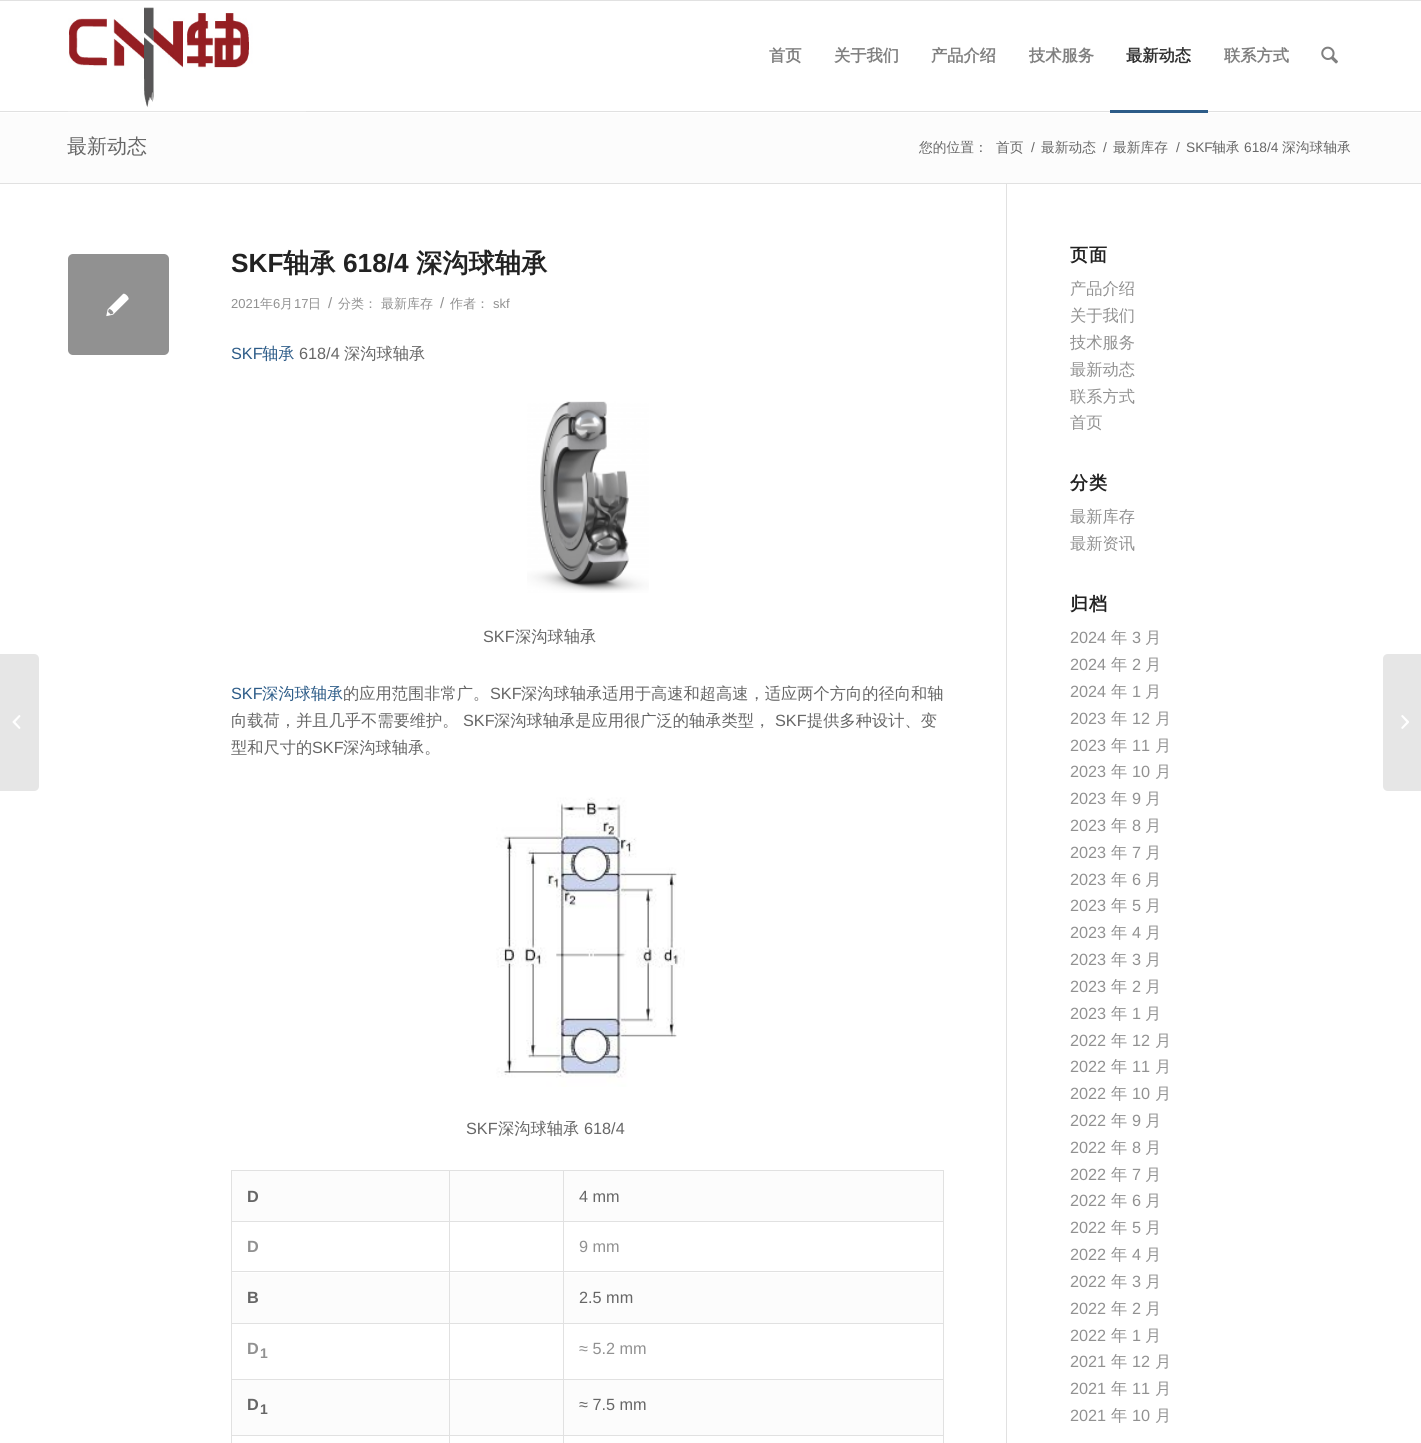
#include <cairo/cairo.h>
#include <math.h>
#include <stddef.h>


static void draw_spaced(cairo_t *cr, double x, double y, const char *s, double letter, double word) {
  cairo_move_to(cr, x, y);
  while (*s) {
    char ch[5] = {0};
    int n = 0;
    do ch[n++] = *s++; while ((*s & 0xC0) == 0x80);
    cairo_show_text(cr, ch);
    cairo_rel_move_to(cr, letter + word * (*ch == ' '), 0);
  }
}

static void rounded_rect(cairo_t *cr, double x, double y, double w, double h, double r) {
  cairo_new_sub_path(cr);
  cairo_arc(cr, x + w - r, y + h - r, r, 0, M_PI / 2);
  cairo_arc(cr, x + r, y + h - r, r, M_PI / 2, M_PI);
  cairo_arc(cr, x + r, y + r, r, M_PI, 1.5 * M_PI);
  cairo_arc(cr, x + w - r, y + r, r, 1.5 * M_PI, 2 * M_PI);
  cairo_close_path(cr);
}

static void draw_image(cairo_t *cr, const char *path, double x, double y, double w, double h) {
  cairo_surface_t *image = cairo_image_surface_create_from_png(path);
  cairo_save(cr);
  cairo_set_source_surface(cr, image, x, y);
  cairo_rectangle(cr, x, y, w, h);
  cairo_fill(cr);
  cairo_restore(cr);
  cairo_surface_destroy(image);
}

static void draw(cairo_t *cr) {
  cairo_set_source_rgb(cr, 1, 1, 1);
  cairo_paint(cr);
  cairo_set_source_rgb(cr, 225 / 255.0, 225 / 255.0, 225 / 255.0);
  cairo_rectangle(cr, 0, 0, 1421, 1);
  cairo_fill(cr);
  cairo_rectangle(cr, 0, 111, 1421, 1);
  cairo_fill(cr);
  draw_image(cr, "images/1.png", 68, 7, 238, 105);
  cairo_set_source_rgb(cr, 45 / 255.0, 92 / 255.0, 136 / 255.0);
  cairo_rectangle(cr, 1110, 110, 98, 3);
  cairo_fill(cr);
  draw_image(cr, "images/2.png", 1321, 46, 17, 18);
  cairo_set_source_rgb(cr, 230 / 255.0, 230 / 255.0, 230 / 255.0);
  cairo_new_path(cr);
  cairo_move_to(cr, 0, 654);
  cairo_line_to(cr, 34, 654);
  cairo_curve_to(cr, 37, 654, 39, 656, 39, 659);
  cairo_line_to(cr, 39, 786);
  cairo_curve_to(cr, 39, 789, 37, 791, 34, 791);
  cairo_line_to(cr, 0, 791);
  cairo_close_path(cr);
  cairo_fill(cr);
  draw_image(cr, "images/3.png", 12, 715, 9, 14);
  cairo_set_source_rgb(cr, 252 / 255.0, 252 / 255.0, 252 / 255.0);
  cairo_rectangle(cr, 0, 113, 1421, 70);
  cairo_fill(cr);
  cairo_set_source_rgb(cr, 225 / 255.0, 225 / 255.0, 225 / 255.0);
  cairo_rectangle(cr, 0, 183, 1421, 1);
  cairo_fill(cr);
  cairo_rectangle(cr, 1006, 184, 1, 1259);
  cairo_fill(cr);
  cairo_set_source_rgb(cr, 145 / 255.0, 145 / 255.0, 145 / 255.0);
  rounded_rect(cr, 68, 254, 101, 101, 5);
  cairo_fill(cr);
  draw_image(cr, "images/4.png", 106, 293, 23, 24);
  draw_image(cr, "images/5.png", 527, 401, 122, 192);
  draw_image(cr, "images/6.png", 496, 797, 189, 290);
  cairo_set_source_rgb(cr, 252 / 255.0, 252 / 255.0, 252 / 255.0);
  cairo_rectangle(cr, 232, 1171, 711, 264);
  cairo_fill(cr);
  cairo_set_source_rgb(cr, 225 / 255.0, 225 / 255.0, 225 / 255.0);
  cairo_rectangle(cr, 231, 1170, 713, 1);
  cairo_fill(cr);
  cairo_rectangle(cr, 943, 1221, 1, 222);
  cairo_fill(cr);
  cairo_rectangle(cr, 943, 1170, 1, 53);
  cairo_fill(cr);
  cairo_set_source_rgb(cr, 1, 1, 1);
  cairo_rectangle(cr, 232, 1222, 711, 51);
  cairo_fill(cr);
  cairo_rectangle(cr, 232, 1324, 711, 55);
  cairo_fill(cr);
  cairo_set_source_rgb(cr, 225 / 255.0, 225 / 255.0, 225 / 255.0);
  cairo_rectangle(cr, 563, 1435, 1, 8);
  cairo_fill(cr);
  cairo_rectangle(cr, 563, 1435, 381, 1);
  cairo_fill(cr);
  cairo_rectangle(cr, 563, 1379, 1, 57);
  cairo_fill(cr);
  cairo_rectangle(cr, 563, 1379, 381, 1);
  cairo_fill(cr);
  cairo_rectangle(cr, 563, 1323, 1, 57);
  cairo_fill(cr);
  cairo_rectangle(cr, 563, 1323, 381, 1);
  cairo_fill(cr);
  cairo_rectangle(cr, 563, 1271, 1, 53);
  cairo_fill(cr);
  cairo_rectangle(cr, 563, 1271, 381, 1);
  cairo_fill(cr);
  cairo_rectangle(cr, 563, 1221, 1, 52);
  cairo_fill(cr);
  cairo_rectangle(cr, 563, 1221, 381, 1);
  cairo_fill(cr);
  cairo_rectangle(cr, 563, 1170, 1, 53);
  cairo_fill(cr);
  cairo_rectangle(cr, 449, 1435, 1, 8);
  cairo_fill(cr);
  cairo_rectangle(cr, 449, 1435, 115, 1);
  cairo_fill(cr);
  cairo_rectangle(cr, 449, 1379, 1, 57);
  cairo_fill(cr);
  cairo_rectangle(cr, 449, 1379, 115, 1);
  cairo_fill(cr);
  cairo_rectangle(cr, 449, 1323, 1, 57);
  cairo_fill(cr);
  cairo_rectangle(cr, 449, 1323, 115, 1);
  cairo_fill(cr);
  cairo_rectangle(cr, 449, 1271, 1, 53);
  cairo_fill(cr);
  cairo_rectangle(cr, 449, 1271, 115, 1);
  cairo_fill(cr);
  cairo_rectangle(cr, 449, 1221, 1, 52);
  cairo_fill(cr);
  cairo_rectangle(cr, 449, 1221, 115, 1);
  cairo_fill(cr);
  cairo_rectangle(cr, 449, 1170, 1, 53);
  cairo_fill(cr);
  cairo_rectangle(cr, 231, 1435, 1, 8);
  cairo_fill(cr);
  cairo_rectangle(cr, 231, 1435, 219, 1);
  cairo_fill(cr);
  cairo_rectangle(cr, 231, 1379, 1, 57);
  cairo_fill(cr);
  cairo_rectangle(cr, 231, 1379, 219, 1);
  cairo_fill(cr);
  cairo_rectangle(cr, 231, 1323, 1, 57);
  cairo_fill(cr);
  cairo_rectangle(cr, 231, 1323, 219, 1);
  cairo_fill(cr);
  cairo_rectangle(cr, 231, 1271, 1, 53);
  cairo_fill(cr);
  cairo_rectangle(cr, 231, 1271, 219, 1);
  cairo_fill(cr);
  cairo_rectangle(cr, 231, 1221, 1, 52);
  cairo_fill(cr);
  cairo_rectangle(cr, 231, 1221, 219, 1);
  cairo_fill(cr);
  cairo_rectangle(cr, 231, 1170, 1, 53);
  cairo_fill(cr);
  cairo_set_source_rgb(cr, 230 / 255.0, 230 / 255.0, 230 / 255.0);
  cairo_new_path(cr);
  cairo_move_to(cr, 1388, 654);
  cairo_line_to(cr, 1421, 654);
  cairo_line_to(cr, 1421, 791);
  cairo_line_to(cr, 1388, 791);
  cairo_curve_to(cr, 1385, 791, 1383, 789, 1383, 786);
  cairo_line_to(cr, 1383, 659);
  cairo_curve_to(cr, 1383, 656, 1385, 654, 1388, 654);
  cairo_close_path(cr);
  cairo_fill(cr);
  draw_image(cr, "images/7.png", 1401, 715, 8, 14);
  cairo_select_font_face(cr, "WenQuanYi Zen Hei", CAIRO_FONT_SLANT_NORMAL, CAIRO_FONT_WEIGHT_BOLD);
  cairo_set_font_size(cr, 16.25);
  cairo_set_source_rgb(cr, 128 / 255.0, 128 / 255.0, 128 / 255.0);
  cairo_move_to(cr, 769, 61);
  cairo_show_text(cr, "首页");
  cairo_move_to(cr, 834, 61);
  cairo_show_text(cr, "关于我们");
  cairo_move_to(cr, 931, 61);
  cairo_show_text(cr, "产品介绍");
  cairo_move_to(cr, 1029, 61);
  cairo_show_text(cr, "技术服务");
  cairo_set_source_rgb(cr, 51 / 255.0, 51 / 255.0, 51 / 255.0);
  cairo_move_to(cr, 1126, 61);
  cairo_show_text(cr, "最新动态");
  cairo_set_source_rgb(cr, 128 / 255.0, 128 / 255.0, 128 / 255.0);
  cairo_move_to(cr, 1224, 61);
  cairo_show_text(cr, "联系方式");
  cairo_select_font_face(cr, "WenQuanYi Zen Hei Medium", CAIRO_FONT_SLANT_NORMAL, CAIRO_FONT_WEIGHT_NORMAL);
  cairo_set_font_size(cr, 20);
  cairo_set_source_rgb(cr, 102 / 255.0, 102 / 255.0, 102 / 255.0);
  cairo_move_to(cr, 67, 153);
  cairo_show_text(cr, "最新动态");
  cairo_set_font_size(cr, 13.75);
  cairo_move_to(cr, 919, 152);
  cairo_show_text(cr, "您的位置：");
  cairo_move_to(cr, 996, 152);
  cairo_show_text(cr, "首页");
  cairo_select_font_face(cr, "Liberation Sans", CAIRO_FONT_SLANT_NORMAL, CAIRO_FONT_WEIGHT_NORMAL);
  cairo_move_to(cr, 1031, 152);
  cairo_show_text(cr, "/");
  cairo_select_font_face(cr, "WenQuanYi Zen Hei Medium", CAIRO_FONT_SLANT_NORMAL, CAIRO_FONT_WEIGHT_NORMAL);
  cairo_move_to(cr, 1041, 152);
  cairo_show_text(cr, "最新动态");
  cairo_select_font_face(cr, "Liberation Sans", CAIRO_FONT_SLANT_NORMAL, CAIRO_FONT_WEIGHT_NORMAL);
  cairo_move_to(cr, 1103, 152);
  cairo_show_text(cr, "/");
  cairo_select_font_face(cr, "WenQuanYi Zen Hei Medium", CAIRO_FONT_SLANT_NORMAL, CAIRO_FONT_WEIGHT_NORMAL);
  cairo_move_to(cr, 1113, 152);
  cairo_show_text(cr, "最新库存");
  cairo_select_font_face(cr, "Liberation Sans", CAIRO_FONT_SLANT_NORMAL, CAIRO_FONT_WEIGHT_NORMAL);
  cairo_move_to(cr, 1176, 152);
  cairo_show_text(cr, "/");
  cairo_move_to(cr, 1186, 152);
  cairo_show_text(cr, "SKF");
  cairo_select_font_face(cr, "WenQuanYi Zen Hei Medium", CAIRO_FONT_SLANT_NORMAL, CAIRO_FONT_WEIGHT_NORMAL);
  cairo_move_to(cr, 1212, 152);
  cairo_show_text(cr, "轴承");
  cairo_select_font_face(cr, "Liberation Sans", CAIRO_FONT_SLANT_NORMAL, CAIRO_FONT_WEIGHT_NORMAL);
  cairo_move_to(cr, 1244, 152);
  cairo_show_text(cr, "618/4");
  cairo_select_font_face(cr, "WenQuanYi Zen Hei Medium", CAIRO_FONT_SLANT_NORMAL, CAIRO_FONT_WEIGHT_NORMAL);
  cairo_move_to(cr, 1282, 152);
  cairo_show_text(cr, "深沟球轴承");
  cairo_select_font_face(cr, "Liberation Sans", CAIRO_FONT_SLANT_NORMAL, CAIRO_FONT_WEIGHT_BOLD);
  cairo_set_font_size(cr, 26.25);
  cairo_set_source_rgb(cr, 34 / 255.0, 34 / 255.0, 34 / 255.0);
  cairo_move_to(cr, 231, 272);
  cairo_show_text(cr, "SKF");
  cairo_select_font_face(cr, "WenQuanYi Zen Hei", CAIRO_FONT_SLANT_NORMAL, CAIRO_FONT_WEIGHT_BOLD);
  cairo_move_to(cr, 283, 272);
  cairo_show_text(cr, "轴承");
  cairo_select_font_face(cr, "Liberation Sans", CAIRO_FONT_SLANT_NORMAL, CAIRO_FONT_WEIGHT_BOLD);
  cairo_move_to(cr, 343, 272);
  cairo_show_text(cr, "618/4");
  cairo_select_font_face(cr, "WenQuanYi Zen Hei", CAIRO_FONT_SLANT_NORMAL, CAIRO_FONT_WEIGHT_BOLD);
  cairo_move_to(cr, 416, 272);
  cairo_show_text(cr, "深沟球轴承");
  cairo_select_font_face(cr, "Liberation Sans", CAIRO_FONT_SLANT_NORMAL, CAIRO_FONT_WEIGHT_NORMAL);
  cairo_set_font_size(cr, 13);
  cairo_set_source_rgb(cr, 145 / 255.0, 145 / 255.0, 145 / 255.0);
  cairo_move_to(cr, 231, 308);
  cairo_show_text(cr, "2021");
  cairo_select_font_face(cr, "WenQuanYi Zen Hei Medium", CAIRO_FONT_SLANT_NORMAL, CAIRO_FONT_WEIGHT_NORMAL);
  cairo_move_to(cr, 260, 308);
  cairo_show_text(cr, "年");
  cairo_select_font_face(cr, "Liberation Sans", CAIRO_FONT_SLANT_NORMAL, CAIRO_FONT_WEIGHT_NORMAL);
  cairo_move_to(cr, 273, 308);
  cairo_show_text(cr, "6");
  cairo_select_font_face(cr, "WenQuanYi Zen Hei Medium", CAIRO_FONT_SLANT_NORMAL, CAIRO_FONT_WEIGHT_NORMAL);
  cairo_move_to(cr, 280, 308);
  cairo_show_text(cr, "月");
  cairo_select_font_face(cr, "Liberation Sans", CAIRO_FONT_SLANT_NORMAL, CAIRO_FONT_WEIGHT_NORMAL);
  cairo_move_to(cr, 294, 308);
  cairo_show_text(cr, "17");
  cairo_select_font_face(cr, "WenQuanYi Zen Hei Medium", CAIRO_FONT_SLANT_NORMAL, CAIRO_FONT_WEIGHT_NORMAL);
  cairo_move_to(cr, 308, 308);
  cairo_show_text(cr, "日");
  cairo_select_font_face(cr, "Liberation Sans", CAIRO_FONT_SLANT_NORMAL, CAIRO_FONT_WEIGHT_NORMAL);
  cairo_set_font_size(cr, 15);
  cairo_move_to(cr, 328, 308);
  cairo_show_text(cr, "/");
  cairo_select_font_face(cr, "WenQuanYi Zen Hei Medium", CAIRO_FONT_SLANT_NORMAL, CAIRO_FONT_WEIGHT_NORMAL);
  cairo_set_font_size(cr, 13);
  cairo_move_to(cr, 338, 308);
  cairo_show_text(cr, "分类：");
  cairo_move_to(cr, 381, 308);
  cairo_show_text(cr, "最新库存");
  cairo_select_font_face(cr, "Liberation Sans", CAIRO_FONT_SLANT_NORMAL, CAIRO_FONT_WEIGHT_NORMAL);
  cairo_set_font_size(cr, 15);
  cairo_move_to(cr, 440, 308);
  cairo_show_text(cr, "/");
  cairo_select_font_face(cr, "WenQuanYi Zen Hei Medium", CAIRO_FONT_SLANT_NORMAL, CAIRO_FONT_WEIGHT_NORMAL);
  cairo_set_font_size(cr, 13);
  cairo_move_to(cr, 450, 308);
  cairo_show_text(cr, "作者：");
  cairo_select_font_face(cr, "Liberation Sans", CAIRO_FONT_SLANT_NORMAL, CAIRO_FONT_WEIGHT_NORMAL);
  cairo_move_to(cr, 493, 308);
  cairo_show_text(cr, "skf");
  cairo_set_font_size(cr, 16.25);
  cairo_set_source_rgb(cr, 45 / 255.0, 92 / 255.0, 136 / 255.0);
  cairo_move_to(cr, 231, 359);
  cairo_show_text(cr, "SKF");
  cairo_select_font_face(cr, "WenQuanYi Zen Hei Medium", CAIRO_FONT_SLANT_NORMAL, CAIRO_FONT_WEIGHT_NORMAL);
  cairo_move_to(cr, 262, 359);
  cairo_show_text(cr, "轴承");
  cairo_select_font_face(cr, "Liberation Sans", CAIRO_FONT_SLANT_NORMAL, CAIRO_FONT_WEIGHT_NORMAL);
  cairo_set_source_rgb(cr, 102 / 255.0, 102 / 255.0, 102 / 255.0);
  cairo_move_to(cr, 299, 359);
  cairo_show_text(cr, "618/4");
  cairo_select_font_face(cr, "WenQuanYi Zen Hei Medium", CAIRO_FONT_SLANT_NORMAL, CAIRO_FONT_WEIGHT_NORMAL);
  cairo_move_to(cr, 344, 359);
  cairo_show_text(cr, "深沟球轴承");
  cairo_select_font_face(cr, "Liberation Sans", CAIRO_FONT_SLANT_NORMAL, CAIRO_FONT_WEIGHT_NORMAL);
  cairo_move_to(cr, 483, 642);
  cairo_show_text(cr, "SKF");
  cairo_select_font_face(cr, "WenQuanYi Zen Hei Medium", CAIRO_FONT_SLANT_NORMAL, CAIRO_FONT_WEIGHT_NORMAL);
  cairo_move_to(cr, 515, 642);
  cairo_show_text(cr, "深沟球轴承");
  cairo_select_font_face(cr, "Liberation Sans", CAIRO_FONT_SLANT_NORMAL, CAIRO_FONT_WEIGHT_NORMAL);
  cairo_set_source_rgb(cr, 45 / 255.0, 92 / 255.0, 136 / 255.0);
  cairo_move_to(cr, 231, 699);
  cairo_show_text(cr, "SKF");
  cairo_select_font_face(cr, "WenQuanYi Zen Hei Medium", CAIRO_FONT_SLANT_NORMAL, CAIRO_FONT_WEIGHT_NORMAL);
  cairo_move_to(cr, 262, 699);
  cairo_show_text(cr, "深沟球轴承");
  cairo_set_source_rgb(cr, 102 / 255.0, 102 / 255.0, 102 / 255.0);
  cairo_move_to(cr, 343, 699);
  cairo_show_text(cr, "的应用范围非常广。");
  cairo_select_font_face(cr, "Liberation Sans", CAIRO_FONT_SLANT_NORMAL, CAIRO_FONT_WEIGHT_NORMAL);
  cairo_move_to(cr, 490, 699);
  cairo_show_text(cr, "SKF");
  cairo_select_font_face(cr, "WenQuanYi Zen Hei Medium", CAIRO_FONT_SLANT_NORMAL, CAIRO_FONT_WEIGHT_NORMAL);
  cairo_move_to(cr, 521, 699);
  cairo_show_text(cr, "深沟球轴承适用于高速和超高速，适应两个方向的径向和轴");
  cairo_move_to(cr, 231, 726);
  cairo_show_text(cr, "向载荷，并且几乎不需要维护。");
  cairo_select_font_face(cr, "Liberation Sans", CAIRO_FONT_SLANT_NORMAL, CAIRO_FONT_WEIGHT_NORMAL);
  cairo_move_to(cr, 463, 726);
  cairo_show_text(cr, "SKF");
  cairo_select_font_face(cr, "WenQuanYi Zen Hei Medium", CAIRO_FONT_SLANT_NORMAL, CAIRO_FONT_WEIGHT_NORMAL);
  cairo_move_to(cr, 494, 726);
  cairo_show_text(cr, "深沟球轴承是应用很广泛的轴承类型，");
  cairo_select_font_face(cr, "Liberation Sans", CAIRO_FONT_SLANT_NORMAL, CAIRO_FONT_WEIGHT_NORMAL);
  cairo_move_to(cr, 775, 726);
  cairo_show_text(cr, "SKF");
  cairo_select_font_face(cr, "WenQuanYi Zen Hei Medium", CAIRO_FONT_SLANT_NORMAL, CAIRO_FONT_WEIGHT_NORMAL);
  cairo_move_to(cr, 807, 726);
  cairo_show_text(cr, "提供多种设计、变");
  cairo_move_to(cr, 231, 753);
  cairo_show_text(cr, "型和尺寸的");
  cairo_select_font_face(cr, "Liberation Sans", CAIRO_FONT_SLANT_NORMAL, CAIRO_FONT_WEIGHT_NORMAL);
  cairo_move_to(cr, 312, 753);
  cairo_show_text(cr, "SKF");
  cairo_select_font_face(cr, "WenQuanYi Zen Hei Medium", CAIRO_FONT_SLANT_NORMAL, CAIRO_FONT_WEIGHT_NORMAL);
  cairo_move_to(cr, 343, 753);
  cairo_show_text(cr, "深沟球轴承。");
  cairo_select_font_face(cr, "Liberation Sans", CAIRO_FONT_SLANT_NORMAL, CAIRO_FONT_WEIGHT_NORMAL);
  cairo_move_to(cr, 466, 1134);
  cairo_show_text(cr, "SKF");
  cairo_select_font_face(cr, "WenQuanYi Zen Hei Medium", CAIRO_FONT_SLANT_NORMAL, CAIRO_FONT_WEIGHT_NORMAL);
  cairo_move_to(cr, 498, 1134);
  cairo_show_text(cr, "深沟球轴承");
  cairo_select_font_face(cr, "Liberation Sans", CAIRO_FONT_SLANT_NORMAL, CAIRO_FONT_WEIGHT_NORMAL);
  cairo_move_to(cr, 584, 1134);
  cairo_show_text(cr, "618/4");
  cairo_select_font_face(cr, "Liberation Sans", CAIRO_FONT_SLANT_NORMAL, CAIRO_FONT_WEIGHT_BOLD);
  draw_spaced(cr, 247, 1202, "D", 2, 0);
  cairo_select_font_face(cr, "Liberation Sans", CAIRO_FONT_SLANT_NORMAL, CAIRO_FONT_WEIGHT_NORMAL);
  cairo_move_to(cr, 579, 1202);
  cairo_show_text(cr, "4 mm");
  cairo_select_font_face(cr, "Liberation Sans", CAIRO_FONT_SLANT_NORMAL, CAIRO_FONT_WEIGHT_BOLD);
  cairo_set_source_rgb(cr, 145 / 255.0, 145 / 255.0, 145 / 255.0);
  draw_spaced(cr, 247, 1252, "D", 2, 0);
  cairo_select_font_face(cr, "Liberation Sans", CAIRO_FONT_SLANT_NORMAL, CAIRO_FONT_WEIGHT_NORMAL);
  cairo_move_to(cr, 579, 1252);
  cairo_show_text(cr, "9 mm");
  cairo_select_font_face(cr, "Liberation Sans", CAIRO_FONT_SLANT_NORMAL, CAIRO_FONT_WEIGHT_BOLD);
  cairo_set_source_rgb(cr, 102 / 255.0, 102 / 255.0, 102 / 255.0);
  draw_spaced(cr, 247, 1303, "B", 2, 0);
  cairo_select_font_face(cr, "Liberation Sans", CAIRO_FONT_SLANT_NORMAL, CAIRO_FONT_WEIGHT_NORMAL);
  cairo_move_to(cr, 579, 1303);
  cairo_show_text(cr, "2.5 mm");
  cairo_select_font_face(cr, "Liberation Sans", CAIRO_FONT_SLANT_NORMAL, CAIRO_FONT_WEIGHT_BOLD);
  cairo_set_source_rgb(cr, 145 / 255.0, 145 / 255.0, 145 / 255.0);
  draw_spaced(cr, 247, 1354, "D", 2, 0);
  cairo_set_font_size(cr, 14);
  draw_spaced(cr, 260, 1358, "1", 2, 0);
  cairo_select_font_face(cr, "Liberation Sans", CAIRO_FONT_SLANT_NORMAL, CAIRO_FONT_WEIGHT_NORMAL);
  cairo_set_font_size(cr, 16.25);
  cairo_move_to(cr, 579, 1354);
  cairo_show_text(cr, "≈ 5.2 mm");
  cairo_select_font_face(cr, "Liberation Sans", CAIRO_FONT_SLANT_NORMAL, CAIRO_FONT_WEIGHT_BOLD);
  cairo_set_source_rgb(cr, 102 / 255.0, 102 / 255.0, 102 / 255.0);
  draw_spaced(cr, 247, 1410, "D", 2, 0);
  cairo_set_font_size(cr, 14);
  draw_spaced(cr, 260, 1414, "1", 2, 0);
  cairo_select_font_face(cr, "Liberation Sans", CAIRO_FONT_SLANT_NORMAL, CAIRO_FONT_WEIGHT_NORMAL);
  cairo_set_font_size(cr, 16.25);
  cairo_move_to(cr, 579, 1410);
  cairo_show_text(cr, "≈ 7.5 mm");
  cairo_select_font_face(cr, "WenQuanYi Zen Hei", CAIRO_FONT_SLANT_NORMAL, CAIRO_FONT_WEIGHT_BOLD);
  cairo_set_font_size(cr, 18);
  cairo_set_source_rgb(cr, 34 / 255.0, 34 / 255.0, 34 / 255.0);
  draw_spaced(cr, 1070, 261, "页面", 1, 0);
  cairo_select_font_face(cr, "WenQuanYi Zen Hei Medium", CAIRO_FONT_SLANT_NORMAL, CAIRO_FONT_WEIGHT_NORMAL);
  cairo_set_font_size(cr, 16.25);
  cairo_set_source_rgb(cr, 145 / 255.0, 145 / 255.0, 145 / 255.0);
  cairo_move_to(cr, 1070, 294);
  cairo_show_text(cr, "产品介绍");
  cairo_move_to(cr, 1070, 321);
  cairo_show_text(cr, "关于我们");
  cairo_move_to(cr, 1070, 348);
  cairo_show_text(cr, "技术服务");
  cairo_move_to(cr, 1070, 375);
  cairo_show_text(cr, "最新动态");
  cairo_move_to(cr, 1070, 402);
  cairo_show_text(cr, "联系方式");
  cairo_move_to(cr, 1070, 428);
  cairo_show_text(cr, "首页");
  cairo_select_font_face(cr, "WenQuanYi Zen Hei", CAIRO_FONT_SLANT_NORMAL, CAIRO_FONT_WEIGHT_BOLD);
  cairo_set_font_size(cr, 18);
  cairo_set_source_rgb(cr, 34 / 255.0, 34 / 255.0, 34 / 255.0);
  draw_spaced(cr, 1070, 489, "分类", 1, 0);
  cairo_select_font_face(cr, "WenQuanYi Zen Hei Medium", CAIRO_FONT_SLANT_NORMAL, CAIRO_FONT_WEIGHT_NORMAL);
  cairo_set_font_size(cr, 16.25);
  cairo_set_source_rgb(cr, 145 / 255.0, 145 / 255.0, 145 / 255.0);
  cairo_move_to(cr, 1070, 522);
  cairo_show_text(cr, "最新库存");
  cairo_move_to(cr, 1070, 549);
  cairo_show_text(cr, "最新资讯");
  cairo_select_font_face(cr, "WenQuanYi Zen Hei", CAIRO_FONT_SLANT_NORMAL, CAIRO_FONT_WEIGHT_BOLD);
  cairo_set_font_size(cr, 18);
  cairo_set_source_rgb(cr, 34 / 255.0, 34 / 255.0, 34 / 255.0);
  draw_spaced(cr, 1070, 610, "归档", 1, 0);
  cairo_select_font_face(cr, "Liberation Sans", CAIRO_FONT_SLANT_NORMAL, CAIRO_FONT_WEIGHT_NORMAL);
  cairo_set_font_size(cr, 16.25);
  cairo_set_source_rgb(cr, 145 / 255.0, 145 / 255.0, 145 / 255.0);
  cairo_move_to(cr, 1070, 643);
  cairo_show_text(cr, "2024");
  cairo_select_font_face(cr, "WenQuanYi Zen Hei Medium", CAIRO_FONT_SLANT_NORMAL, CAIRO_FONT_WEIGHT_NORMAL);
  cairo_move_to(cr, 1111, 643);
  cairo_show_text(cr, "年");
  cairo_select_font_face(cr, "Liberation Sans", CAIRO_FONT_SLANT_NORMAL, CAIRO_FONT_WEIGHT_NORMAL);
  cairo_move_to(cr, 1132, 643);
  cairo_show_text(cr, "3");
  cairo_select_font_face(cr, "WenQuanYi Zen Hei Medium", CAIRO_FONT_SLANT_NORMAL, CAIRO_FONT_WEIGHT_NORMAL);
  cairo_move_to(cr, 1145, 643);
  cairo_show_text(cr, "月");
  cairo_select_font_face(cr, "Liberation Sans", CAIRO_FONT_SLANT_NORMAL, CAIRO_FONT_WEIGHT_NORMAL);
  cairo_move_to(cr, 1070, 670);
  cairo_show_text(cr, "2024");
  cairo_select_font_face(cr, "WenQuanYi Zen Hei Medium", CAIRO_FONT_SLANT_NORMAL, CAIRO_FONT_WEIGHT_NORMAL);
  cairo_move_to(cr, 1111, 670);
  cairo_show_text(cr, "年");
  cairo_select_font_face(cr, "Liberation Sans", CAIRO_FONT_SLANT_NORMAL, CAIRO_FONT_WEIGHT_NORMAL);
  cairo_move_to(cr, 1132, 670);
  cairo_show_text(cr, "2");
  cairo_select_font_face(cr, "WenQuanYi Zen Hei Medium", CAIRO_FONT_SLANT_NORMAL, CAIRO_FONT_WEIGHT_NORMAL);
  cairo_move_to(cr, 1145, 670);
  cairo_show_text(cr, "月");
  cairo_select_font_face(cr, "Liberation Sans", CAIRO_FONT_SLANT_NORMAL, CAIRO_FONT_WEIGHT_NORMAL);
  cairo_move_to(cr, 1070, 697);
  cairo_show_text(cr, "2024");
  cairo_select_font_face(cr, "WenQuanYi Zen Hei Medium", CAIRO_FONT_SLANT_NORMAL, CAIRO_FONT_WEIGHT_NORMAL);
  cairo_move_to(cr, 1111, 697);
  cairo_show_text(cr, "年");
  cairo_select_font_face(cr, "Liberation Sans", CAIRO_FONT_SLANT_NORMAL, CAIRO_FONT_WEIGHT_NORMAL);
  cairo_move_to(cr, 1132, 697);
  cairo_show_text(cr, "1");
  cairo_select_font_face(cr, "WenQuanYi Zen Hei Medium", CAIRO_FONT_SLANT_NORMAL, CAIRO_FONT_WEIGHT_NORMAL);
  cairo_move_to(cr, 1145, 697);
  cairo_show_text(cr, "月");
  cairo_select_font_face(cr, "Liberation Sans", CAIRO_FONT_SLANT_NORMAL, CAIRO_FONT_WEIGHT_NORMAL);
  cairo_move_to(cr, 1070, 724);
  cairo_show_text(cr, "2023");
  cairo_select_font_face(cr, "WenQuanYi Zen Hei Medium", CAIRO_FONT_SLANT_NORMAL, CAIRO_FONT_WEIGHT_NORMAL);
  cairo_move_to(cr, 1111, 724);
  cairo_show_text(cr, "年");
  cairo_select_font_face(cr, "Liberation Sans", CAIRO_FONT_SLANT_NORMAL, CAIRO_FONT_WEIGHT_NORMAL);
  cairo_move_to(cr, 1132, 724);
  cairo_show_text(cr, "12");
  cairo_select_font_face(cr, "WenQuanYi Zen Hei Medium", CAIRO_FONT_SLANT_NORMAL, CAIRO_FONT_WEIGHT_NORMAL);
  cairo_move_to(cr, 1155, 724);
  cairo_show_text(cr, "月");
  cairo_select_font_face(cr, "Liberation Sans", CAIRO_FONT_SLANT_NORMAL, CAIRO_FONT_WEIGHT_NORMAL);
  cairo_move_to(cr, 1070, 751);
  cairo_show_text(cr, "2023");
  cairo_select_font_face(cr, "WenQuanYi Zen Hei Medium", CAIRO_FONT_SLANT_NORMAL, CAIRO_FONT_WEIGHT_NORMAL);
  cairo_move_to(cr, 1111, 751);
  cairo_show_text(cr, "年");
  cairo_select_font_face(cr, "Liberation Sans", CAIRO_FONT_SLANT_NORMAL, CAIRO_FONT_WEIGHT_NORMAL);
  cairo_move_to(cr, 1132, 751);
  cairo_show_text(cr, "11");
  cairo_select_font_face(cr, "WenQuanYi Zen Hei Medium", CAIRO_FONT_SLANT_NORMAL, CAIRO_FONT_WEIGHT_NORMAL);
  cairo_move_to(cr, 1155, 751);
  cairo_show_text(cr, "月");
  cairo_select_font_face(cr, "Liberation Sans", CAIRO_FONT_SLANT_NORMAL, CAIRO_FONT_WEIGHT_NORMAL);
  cairo_move_to(cr, 1070, 777);
  cairo_show_text(cr, "2023");
  cairo_select_font_face(cr, "WenQuanYi Zen Hei Medium", CAIRO_FONT_SLANT_NORMAL, CAIRO_FONT_WEIGHT_NORMAL);
  cairo_move_to(cr, 1111, 777);
  cairo_show_text(cr, "年");
  cairo_select_font_face(cr, "Liberation Sans", CAIRO_FONT_SLANT_NORMAL, CAIRO_FONT_WEIGHT_NORMAL);
  cairo_move_to(cr, 1132, 777);
  cairo_show_text(cr, "10");
  cairo_select_font_face(cr, "WenQuanYi Zen Hei Medium", CAIRO_FONT_SLANT_NORMAL, CAIRO_FONT_WEIGHT_NORMAL);
  cairo_move_to(cr, 1155, 777);
  cairo_show_text(cr, "月");
  cairo_select_font_face(cr, "Liberation Sans", CAIRO_FONT_SLANT_NORMAL, CAIRO_FONT_WEIGHT_NORMAL);
  cairo_move_to(cr, 1070, 804);
  cairo_show_text(cr, "2023");
  cairo_select_font_face(cr, "WenQuanYi Zen Hei Medium", CAIRO_FONT_SLANT_NORMAL, CAIRO_FONT_WEIGHT_NORMAL);
  cairo_move_to(cr, 1111, 804);
  cairo_show_text(cr, "年");
  cairo_select_font_face(cr, "Liberation Sans", CAIRO_FONT_SLANT_NORMAL, CAIRO_FONT_WEIGHT_NORMAL);
  cairo_move_to(cr, 1132, 804);
  cairo_show_text(cr, "9");
  cairo_select_font_face(cr, "WenQuanYi Zen Hei Medium", CAIRO_FONT_SLANT_NORMAL, CAIRO_FONT_WEIGHT_NORMAL);
  cairo_move_to(cr, 1145, 804);
  cairo_show_text(cr, "月");
  cairo_select_font_face(cr, "Liberation Sans", CAIRO_FONT_SLANT_NORMAL, CAIRO_FONT_WEIGHT_NORMAL);
  cairo_move_to(cr, 1070, 831);
  cairo_show_text(cr, "2023");
  cairo_select_font_face(cr, "WenQuanYi Zen Hei Medium", CAIRO_FONT_SLANT_NORMAL, CAIRO_FONT_WEIGHT_NORMAL);
  cairo_move_to(cr, 1111, 831);
  cairo_show_text(cr, "年");
  cairo_select_font_face(cr, "Liberation Sans", CAIRO_FONT_SLANT_NORMAL, CAIRO_FONT_WEIGHT_NORMAL);
  cairo_move_to(cr, 1132, 831);
  cairo_show_text(cr, "8");
  cairo_select_font_face(cr, "WenQuanYi Zen Hei Medium", CAIRO_FONT_SLANT_NORMAL, CAIRO_FONT_WEIGHT_NORMAL);
  cairo_move_to(cr, 1145, 831);
  cairo_show_text(cr, "月");
  cairo_select_font_face(cr, "Liberation Sans", CAIRO_FONT_SLANT_NORMAL, CAIRO_FONT_WEIGHT_NORMAL);
  cairo_move_to(cr, 1070, 858);
  cairo_show_text(cr, "2023");
  cairo_select_font_face(cr, "WenQuanYi Zen Hei Medium", CAIRO_FONT_SLANT_NORMAL, CAIRO_FONT_WEIGHT_NORMAL);
  cairo_move_to(cr, 1111, 858);
  cairo_show_text(cr, "年");
  cairo_select_font_face(cr, "Liberation Sans", CAIRO_FONT_SLANT_NORMAL, CAIRO_FONT_WEIGHT_NORMAL);
  cairo_move_to(cr, 1132, 858);
  cairo_show_text(cr, "7");
  cairo_select_font_face(cr, "WenQuanYi Zen Hei Medium", CAIRO_FONT_SLANT_NORMAL, CAIRO_FONT_WEIGHT_NORMAL);
  cairo_move_to(cr, 1145, 858);
  cairo_show_text(cr, "月");
  cairo_select_font_face(cr, "Liberation Sans", CAIRO_FONT_SLANT_NORMAL, CAIRO_FONT_WEIGHT_NORMAL);
  cairo_move_to(cr, 1070, 885);
  cairo_show_text(cr, "2023");
  cairo_select_font_face(cr, "WenQuanYi Zen Hei Medium", CAIRO_FONT_SLANT_NORMAL, CAIRO_FONT_WEIGHT_NORMAL);
  cairo_move_to(cr, 1111, 885);
  cairo_show_text(cr, "年");
  cairo_select_font_face(cr, "Liberation Sans", CAIRO_FONT_SLANT_NORMAL, CAIRO_FONT_WEIGHT_NORMAL);
  cairo_move_to(cr, 1132, 885);
  cairo_show_text(cr, "6");
  cairo_select_font_face(cr, "WenQuanYi Zen Hei Medium", CAIRO_FONT_SLANT_NORMAL, CAIRO_FONT_WEIGHT_NORMAL);
  cairo_move_to(cr, 1145, 885);
  cairo_show_text(cr, "月");
  cairo_select_font_face(cr, "Liberation Sans", CAIRO_FONT_SLANT_NORMAL, CAIRO_FONT_WEIGHT_NORMAL);
  cairo_move_to(cr, 1070, 911);
  cairo_show_text(cr, "2023");
  cairo_select_font_face(cr, "WenQuanYi Zen Hei Medium", CAIRO_FONT_SLANT_NORMAL, CAIRO_FONT_WEIGHT_NORMAL);
  cairo_move_to(cr, 1111, 911);
  cairo_show_text(cr, "年");
  cairo_select_font_face(cr, "Liberation Sans", CAIRO_FONT_SLANT_NORMAL, CAIRO_FONT_WEIGHT_NORMAL);
  cairo_move_to(cr, 1132, 911);
  cairo_show_text(cr, "5");
  cairo_select_font_face(cr, "WenQuanYi Zen Hei Medium", CAIRO_FONT_SLANT_NORMAL, CAIRO_FONT_WEIGHT_NORMAL);
  cairo_move_to(cr, 1145, 911);
  cairo_show_text(cr, "月");
  cairo_select_font_face(cr, "Liberation Sans", CAIRO_FONT_SLANT_NORMAL, CAIRO_FONT_WEIGHT_NORMAL);
  cairo_move_to(cr, 1070, 938);
  cairo_show_text(cr, "2023");
  cairo_select_font_face(cr, "WenQuanYi Zen Hei Medium", CAIRO_FONT_SLANT_NORMAL, CAIRO_FONT_WEIGHT_NORMAL);
  cairo_move_to(cr, 1111, 938);
  cairo_show_text(cr, "年");
  cairo_select_font_face(cr, "Liberation Sans", CAIRO_FONT_SLANT_NORMAL, CAIRO_FONT_WEIGHT_NORMAL);
  cairo_move_to(cr, 1132, 938);
  cairo_show_text(cr, "4");
  cairo_select_font_face(cr, "WenQuanYi Zen Hei Medium", CAIRO_FONT_SLANT_NORMAL, CAIRO_FONT_WEIGHT_NORMAL);
  cairo_move_to(cr, 1145, 938);
  cairo_show_text(cr, "月");
  cairo_select_font_face(cr, "Liberation Sans", CAIRO_FONT_SLANT_NORMAL, CAIRO_FONT_WEIGHT_NORMAL);
  cairo_move_to(cr, 1070, 965);
  cairo_show_text(cr, "2023");
  cairo_select_font_face(cr, "WenQuanYi Zen Hei Medium", CAIRO_FONT_SLANT_NORMAL, CAIRO_FONT_WEIGHT_NORMAL);
  cairo_move_to(cr, 1111, 965);
  cairo_show_text(cr, "年");
  cairo_select_font_face(cr, "Liberation Sans", CAIRO_FONT_SLANT_NORMAL, CAIRO_FONT_WEIGHT_NORMAL);
  cairo_move_to(cr, 1132, 965);
  cairo_show_text(cr, "3");
  cairo_select_font_face(cr, "WenQuanYi Zen Hei Medium", CAIRO_FONT_SLANT_NORMAL, CAIRO_FONT_WEIGHT_NORMAL);
  cairo_move_to(cr, 1145, 965);
  cairo_show_text(cr, "月");
  cairo_select_font_face(cr, "Liberation Sans", CAIRO_FONT_SLANT_NORMAL, CAIRO_FONT_WEIGHT_NORMAL);
  cairo_move_to(cr, 1070, 992);
  cairo_show_text(cr, "2023");
  cairo_select_font_face(cr, "WenQuanYi Zen Hei Medium", CAIRO_FONT_SLANT_NORMAL, CAIRO_FONT_WEIGHT_NORMAL);
  cairo_move_to(cr, 1111, 992);
  cairo_show_text(cr, "年");
  cairo_select_font_face(cr, "Liberation Sans", CAIRO_FONT_SLANT_NORMAL, CAIRO_FONT_WEIGHT_NORMAL);
  cairo_move_to(cr, 1132, 992);
  cairo_show_text(cr, "2");
  cairo_select_font_face(cr, "WenQuanYi Zen Hei Medium", CAIRO_FONT_SLANT_NORMAL, CAIRO_FONT_WEIGHT_NORMAL);
  cairo_move_to(cr, 1145, 992);
  cairo_show_text(cr, "月");
  cairo_select_font_face(cr, "Liberation Sans", CAIRO_FONT_SLANT_NORMAL, CAIRO_FONT_WEIGHT_NORMAL);
  cairo_move_to(cr, 1070, 1019);
  cairo_show_text(cr, "2023");
  cairo_select_font_face(cr, "WenQuanYi Zen Hei Medium", CAIRO_FONT_SLANT_NORMAL, CAIRO_FONT_WEIGHT_NORMAL);
  cairo_move_to(cr, 1111, 1019);
  cairo_show_text(cr, "年");
  cairo_select_font_face(cr, "Liberation Sans", CAIRO_FONT_SLANT_NORMAL, CAIRO_FONT_WEIGHT_NORMAL);
  cairo_move_to(cr, 1132, 1019);
  cairo_show_text(cr, "1");
  cairo_select_font_face(cr, "WenQuanYi Zen Hei Medium", CAIRO_FONT_SLANT_NORMAL, CAIRO_FONT_WEIGHT_NORMAL);
  cairo_move_to(cr, 1145, 1019);
  cairo_show_text(cr, "月");
  cairo_select_font_face(cr, "Liberation Sans", CAIRO_FONT_SLANT_NORMAL, CAIRO_FONT_WEIGHT_NORMAL);
  cairo_move_to(cr, 1070, 1046);
  cairo_show_text(cr, "2022");
  cairo_select_font_face(cr, "WenQuanYi Zen Hei Medium", CAIRO_FONT_SLANT_NORMAL, CAIRO_FONT_WEIGHT_NORMAL);
  cairo_move_to(cr, 1111, 1046);
  cairo_show_text(cr, "年");
  cairo_select_font_face(cr, "Liberation Sans", CAIRO_FONT_SLANT_NORMAL, CAIRO_FONT_WEIGHT_NORMAL);
  cairo_move_to(cr, 1132, 1046);
  cairo_show_text(cr, "12");
  cairo_select_font_face(cr, "WenQuanYi Zen Hei Medium", CAIRO_FONT_SLANT_NORMAL, CAIRO_FONT_WEIGHT_NORMAL);
  cairo_move_to(cr, 1155, 1046);
  cairo_show_text(cr, "月");
  cairo_select_font_face(cr, "Liberation Sans", CAIRO_FONT_SLANT_NORMAL, CAIRO_FONT_WEIGHT_NORMAL);
  cairo_move_to(cr, 1070, 1072);
  cairo_show_text(cr, "2022");
  cairo_select_font_face(cr, "WenQuanYi Zen Hei Medium", CAIRO_FONT_SLANT_NORMAL, CAIRO_FONT_WEIGHT_NORMAL);
  cairo_move_to(cr, 1111, 1072);
  cairo_show_text(cr, "年");
  cairo_select_font_face(cr, "Liberation Sans", CAIRO_FONT_SLANT_NORMAL, CAIRO_FONT_WEIGHT_NORMAL);
  cairo_move_to(cr, 1132, 1072);
  cairo_show_text(cr, "11");
  cairo_select_font_face(cr, "WenQuanYi Zen Hei Medium", CAIRO_FONT_SLANT_NORMAL, CAIRO_FONT_WEIGHT_NORMAL);
  cairo_move_to(cr, 1155, 1072);
  cairo_show_text(cr, "月");
  cairo_select_font_face(cr, "Liberation Sans", CAIRO_FONT_SLANT_NORMAL, CAIRO_FONT_WEIGHT_NORMAL);
  cairo_move_to(cr, 1070, 1099);
  cairo_show_text(cr, "2022");
  cairo_select_font_face(cr, "WenQuanYi Zen Hei Medium", CAIRO_FONT_SLANT_NORMAL, CAIRO_FONT_WEIGHT_NORMAL);
  cairo_move_to(cr, 1111, 1099);
  cairo_show_text(cr, "年");
  cairo_select_font_face(cr, "Liberation Sans", CAIRO_FONT_SLANT_NORMAL, CAIRO_FONT_WEIGHT_NORMAL);
  cairo_move_to(cr, 1132, 1099);
  cairo_show_text(cr, "10");
  cairo_select_font_face(cr, "WenQuanYi Zen Hei Medium", CAIRO_FONT_SLANT_NORMAL, CAIRO_FONT_WEIGHT_NORMAL);
  cairo_move_to(cr, 1155, 1099);
  cairo_show_text(cr, "月");
  cairo_select_font_face(cr, "Liberation Sans", CAIRO_FONT_SLANT_NORMAL, CAIRO_FONT_WEIGHT_NORMAL);
  cairo_move_to(cr, 1070, 1126);
  cairo_show_text(cr, "2022");
  cairo_select_font_face(cr, "WenQuanYi Zen Hei Medium", CAIRO_FONT_SLANT_NORMAL, CAIRO_FONT_WEIGHT_NORMAL);
  cairo_move_to(cr, 1111, 1126);
  cairo_show_text(cr, "年");
  cairo_select_font_face(cr, "Liberation Sans", CAIRO_FONT_SLANT_NORMAL, CAIRO_FONT_WEIGHT_NORMAL);
  cairo_move_to(cr, 1132, 1126);
  cairo_show_text(cr, "9");
  cairo_select_font_face(cr, "WenQuanYi Zen Hei Medium", CAIRO_FONT_SLANT_NORMAL, CAIRO_FONT_WEIGHT_NORMAL);
  cairo_move_to(cr, 1145, 1126);
  cairo_show_text(cr, "月");
  cairo_select_font_face(cr, "Liberation Sans", CAIRO_FONT_SLANT_NORMAL, CAIRO_FONT_WEIGHT_NORMAL);
  cairo_move_to(cr, 1070, 1153);
  cairo_show_text(cr, "2022");
  cairo_select_font_face(cr, "WenQuanYi Zen Hei Medium", CAIRO_FONT_SLANT_NORMAL, CAIRO_FONT_WEIGHT_NORMAL);
  cairo_move_to(cr, 1111, 1153);
  cairo_show_text(cr, "年");
  cairo_select_font_face(cr, "Liberation Sans", CAIRO_FONT_SLANT_NORMAL, CAIRO_FONT_WEIGHT_NORMAL);
  cairo_move_to(cr, 1132, 1153);
  cairo_show_text(cr, "8");
  cairo_select_font_face(cr, "WenQuanYi Zen Hei Medium", CAIRO_FONT_SLANT_NORMAL, CAIRO_FONT_WEIGHT_NORMAL);
  cairo_move_to(cr, 1145, 1153);
  cairo_show_text(cr, "月");
  cairo_select_font_face(cr, "Liberation Sans", CAIRO_FONT_SLANT_NORMAL, CAIRO_FONT_WEIGHT_NORMAL);
  cairo_move_to(cr, 1070, 1180);
  cairo_show_text(cr, "2022");
  cairo_select_font_face(cr, "WenQuanYi Zen Hei Medium", CAIRO_FONT_SLANT_NORMAL, CAIRO_FONT_WEIGHT_NORMAL);
  cairo_move_to(cr, 1111, 1180);
  cairo_show_text(cr, "年");
  cairo_select_font_face(cr, "Liberation Sans", CAIRO_FONT_SLANT_NORMAL, CAIRO_FONT_WEIGHT_NORMAL);
  cairo_move_to(cr, 1132, 1180);
  cairo_show_text(cr, "7");
  cairo_select_font_face(cr, "WenQuanYi Zen Hei Medium", CAIRO_FONT_SLANT_NORMAL, CAIRO_FONT_WEIGHT_NORMAL);
  cairo_move_to(cr, 1145, 1180);
  cairo_show_text(cr, "月");
  cairo_select_font_face(cr, "Liberation Sans", CAIRO_FONT_SLANT_NORMAL, CAIRO_FONT_WEIGHT_NORMAL);
  cairo_move_to(cr, 1070, 1206);
  cairo_show_text(cr, "2022");
  cairo_select_font_face(cr, "WenQuanYi Zen Hei Medium", CAIRO_FONT_SLANT_NORMAL, CAIRO_FONT_WEIGHT_NORMAL);
  cairo_move_to(cr, 1111, 1206);
  cairo_show_text(cr, "年");
  cairo_select_font_face(cr, "Liberation Sans", CAIRO_FONT_SLANT_NORMAL, CAIRO_FONT_WEIGHT_NORMAL);
  cairo_move_to(cr, 1132, 1206);
  cairo_show_text(cr, "6");
  cairo_select_font_face(cr, "WenQuanYi Zen Hei Medium", CAIRO_FONT_SLANT_NORMAL, CAIRO_FONT_WEIGHT_NORMAL);
  cairo_move_to(cr, 1145, 1206);
  cairo_show_text(cr, "月");
  cairo_select_font_face(cr, "Liberation Sans", CAIRO_FONT_SLANT_NORMAL, CAIRO_FONT_WEIGHT_NORMAL);
  cairo_move_to(cr, 1070, 1233);
  cairo_show_text(cr, "2022");
  cairo_select_font_face(cr, "WenQuanYi Zen Hei Medium", CAIRO_FONT_SLANT_NORMAL, CAIRO_FONT_WEIGHT_NORMAL);
  cairo_move_to(cr, 1111, 1233);
  cairo_show_text(cr, "年");
  cairo_select_font_face(cr, "Liberation Sans", CAIRO_FONT_SLANT_NORMAL, CAIRO_FONT_WEIGHT_NORMAL);
  cairo_move_to(cr, 1132, 1233);
  cairo_show_text(cr, "5");
  cairo_select_font_face(cr, "WenQuanYi Zen Hei Medium", CAIRO_FONT_SLANT_NORMAL, CAIRO_FONT_WEIGHT_NORMAL);
  cairo_move_to(cr, 1145, 1233);
  cairo_show_text(cr, "月");
  cairo_select_font_face(cr, "Liberation Sans", CAIRO_FONT_SLANT_NORMAL, CAIRO_FONT_WEIGHT_NORMAL);
  cairo_move_to(cr, 1070, 1260);
  cairo_show_text(cr, "2022");
  cairo_select_font_face(cr, "WenQuanYi Zen Hei Medium", CAIRO_FONT_SLANT_NORMAL, CAIRO_FONT_WEIGHT_NORMAL);
  cairo_move_to(cr, 1111, 1260);
  cairo_show_text(cr, "年");
  cairo_select_font_face(cr, "Liberation Sans", CAIRO_FONT_SLANT_NORMAL, CAIRO_FONT_WEIGHT_NORMAL);
  cairo_move_to(cr, 1132, 1260);
  cairo_show_text(cr, "4");
  cairo_select_font_face(cr, "WenQuanYi Zen Hei Medium", CAIRO_FONT_SLANT_NORMAL, CAIRO_FONT_WEIGHT_NORMAL);
  cairo_move_to(cr, 1145, 1260);
  cairo_show_text(cr, "月");
  cairo_select_font_face(cr, "Liberation Sans", CAIRO_FONT_SLANT_NORMAL, CAIRO_FONT_WEIGHT_NORMAL);
  cairo_move_to(cr, 1070, 1287);
  cairo_show_text(cr, "2022");
  cairo_select_font_face(cr, "WenQuanYi Zen Hei Medium", CAIRO_FONT_SLANT_NORMAL, CAIRO_FONT_WEIGHT_NORMAL);
  cairo_move_to(cr, 1111, 1287);
  cairo_show_text(cr, "年");
  cairo_select_font_face(cr, "Liberation Sans", CAIRO_FONT_SLANT_NORMAL, CAIRO_FONT_WEIGHT_NORMAL);
  cairo_move_to(cr, 1132, 1287);
  cairo_show_text(cr, "3");
  cairo_select_font_face(cr, "WenQuanYi Zen Hei Medium", CAIRO_FONT_SLANT_NORMAL, CAIRO_FONT_WEIGHT_NORMAL);
  cairo_move_to(cr, 1145, 1287);
  cairo_show_text(cr, "月");
  cairo_select_font_face(cr, "Liberation Sans", CAIRO_FONT_SLANT_NORMAL, CAIRO_FONT_WEIGHT_NORMAL);
  cairo_move_to(cr, 1070, 1314);
  cairo_show_text(cr, "2022");
  cairo_select_font_face(cr, "WenQuanYi Zen Hei Medium", CAIRO_FONT_SLANT_NORMAL, CAIRO_FONT_WEIGHT_NORMAL);
  cairo_move_to(cr, 1111, 1314);
  cairo_show_text(cr, "年");
  cairo_select_font_face(cr, "Liberation Sans", CAIRO_FONT_SLANT_NORMAL, CAIRO_FONT_WEIGHT_NORMAL);
  cairo_move_to(cr, 1132, 1314);
  cairo_show_text(cr, "2");
  cairo_select_font_face(cr, "WenQuanYi Zen Hei Medium", CAIRO_FONT_SLANT_NORMAL, CAIRO_FONT_WEIGHT_NORMAL);
  cairo_move_to(cr, 1145, 1314);
  cairo_show_text(cr, "月");
  cairo_select_font_face(cr, "Liberation Sans", CAIRO_FONT_SLANT_NORMAL, CAIRO_FONT_WEIGHT_NORMAL);
  cairo_move_to(cr, 1070, 1341);
  cairo_show_text(cr, "2022");
  cairo_select_font_face(cr, "WenQuanYi Zen Hei Medium", CAIRO_FONT_SLANT_NORMAL, CAIRO_FONT_WEIGHT_NORMAL);
  cairo_move_to(cr, 1111, 1341);
  cairo_show_text(cr, "年");
  cairo_select_font_face(cr, "Liberation Sans", CAIRO_FONT_SLANT_NORMAL, CAIRO_FONT_WEIGHT_NORMAL);
  cairo_move_to(cr, 1132, 1341);
  cairo_show_text(cr, "1");
  cairo_select_font_face(cr, "WenQuanYi Zen Hei Medium", CAIRO_FONT_SLANT_NORMAL, CAIRO_FONT_WEIGHT_NORMAL);
  cairo_move_to(cr, 1145, 1341);
  cairo_show_text(cr, "月");
  cairo_select_font_face(cr, "Liberation Sans", CAIRO_FONT_SLANT_NORMAL, CAIRO_FONT_WEIGHT_NORMAL);
  cairo_move_to(cr, 1070, 1367);
  cairo_show_text(cr, "2021");
  cairo_select_font_face(cr, "WenQuanYi Zen Hei Medium", CAIRO_FONT_SLANT_NORMAL, CAIRO_FONT_WEIGHT_NORMAL);
  cairo_move_to(cr, 1111, 1367);
  cairo_show_text(cr, "年");
  cairo_select_font_face(cr, "Liberation Sans", CAIRO_FONT_SLANT_NORMAL, CAIRO_FONT_WEIGHT_NORMAL);
  cairo_move_to(cr, 1132, 1367);
  cairo_show_text(cr, "12");
  cairo_select_font_face(cr, "WenQuanYi Zen Hei Medium", CAIRO_FONT_SLANT_NORMAL, CAIRO_FONT_WEIGHT_NORMAL);
  cairo_move_to(cr, 1155, 1367);
  cairo_show_text(cr, "月");
  cairo_select_font_face(cr, "Liberation Sans", CAIRO_FONT_SLANT_NORMAL, CAIRO_FONT_WEIGHT_NORMAL);
  cairo_move_to(cr, 1070, 1394);
  cairo_show_text(cr, "2021");
  cairo_select_font_face(cr, "WenQuanYi Zen Hei Medium", CAIRO_FONT_SLANT_NORMAL, CAIRO_FONT_WEIGHT_NORMAL);
  cairo_move_to(cr, 1111, 1394);
  cairo_show_text(cr, "年");
  cairo_select_font_face(cr, "Liberation Sans", CAIRO_FONT_SLANT_NORMAL, CAIRO_FONT_WEIGHT_NORMAL);
  cairo_move_to(cr, 1132, 1394);
  cairo_show_text(cr, "11");
  cairo_select_font_face(cr, "WenQuanYi Zen Hei Medium", CAIRO_FONT_SLANT_NORMAL, CAIRO_FONT_WEIGHT_NORMAL);
  cairo_move_to(cr, 1155, 1394);
  cairo_show_text(cr, "月");
  cairo_select_font_face(cr, "Liberation Sans", CAIRO_FONT_SLANT_NORMAL, CAIRO_FONT_WEIGHT_NORMAL);
  cairo_move_to(cr, 1070, 1421);
  cairo_show_text(cr, "2021");
  cairo_select_font_face(cr, "WenQuanYi Zen Hei Medium", CAIRO_FONT_SLANT_NORMAL, CAIRO_FONT_WEIGHT_NORMAL);
  cairo_move_to(cr, 1111, 1421);
  cairo_show_text(cr, "年");
  cairo_select_font_face(cr, "Liberation Sans", CAIRO_FONT_SLANT_NORMAL, CAIRO_FONT_WEIGHT_NORMAL);
  cairo_move_to(cr, 1132, 1421);
  cairo_show_text(cr, "10");
  cairo_select_font_face(cr, "WenQuanYi Zen Hei Medium", CAIRO_FONT_SLANT_NORMAL, CAIRO_FONT_WEIGHT_NORMAL);
  cairo_move_to(cr, 1155, 1421);
  cairo_show_text(cr, "月");
}

int main(void) {
  cairo_surface_t *surface = cairo_image_surface_create(CAIRO_FORMAT_RGB24, 1421, 1443);
  cairo_t *cr = cairo_create(surface);
  cairo_font_options_t *options = cairo_font_options_create();
  cairo_font_options_set_hint_metrics(options, CAIRO_HINT_METRICS_OFF);
  cairo_font_options_set_hint_style(options, CAIRO_HINT_STYLE_NONE);
  cairo_set_font_options(cr, options);
  cairo_set_miter_limit(cr, 4);
  draw(cr);
  cairo_surface_write_to_png(surface, "out.png");
  cairo_font_options_destroy(options);
  cairo_destroy(cr);
  cairo_surface_destroy(surface);
  return 0;
}
